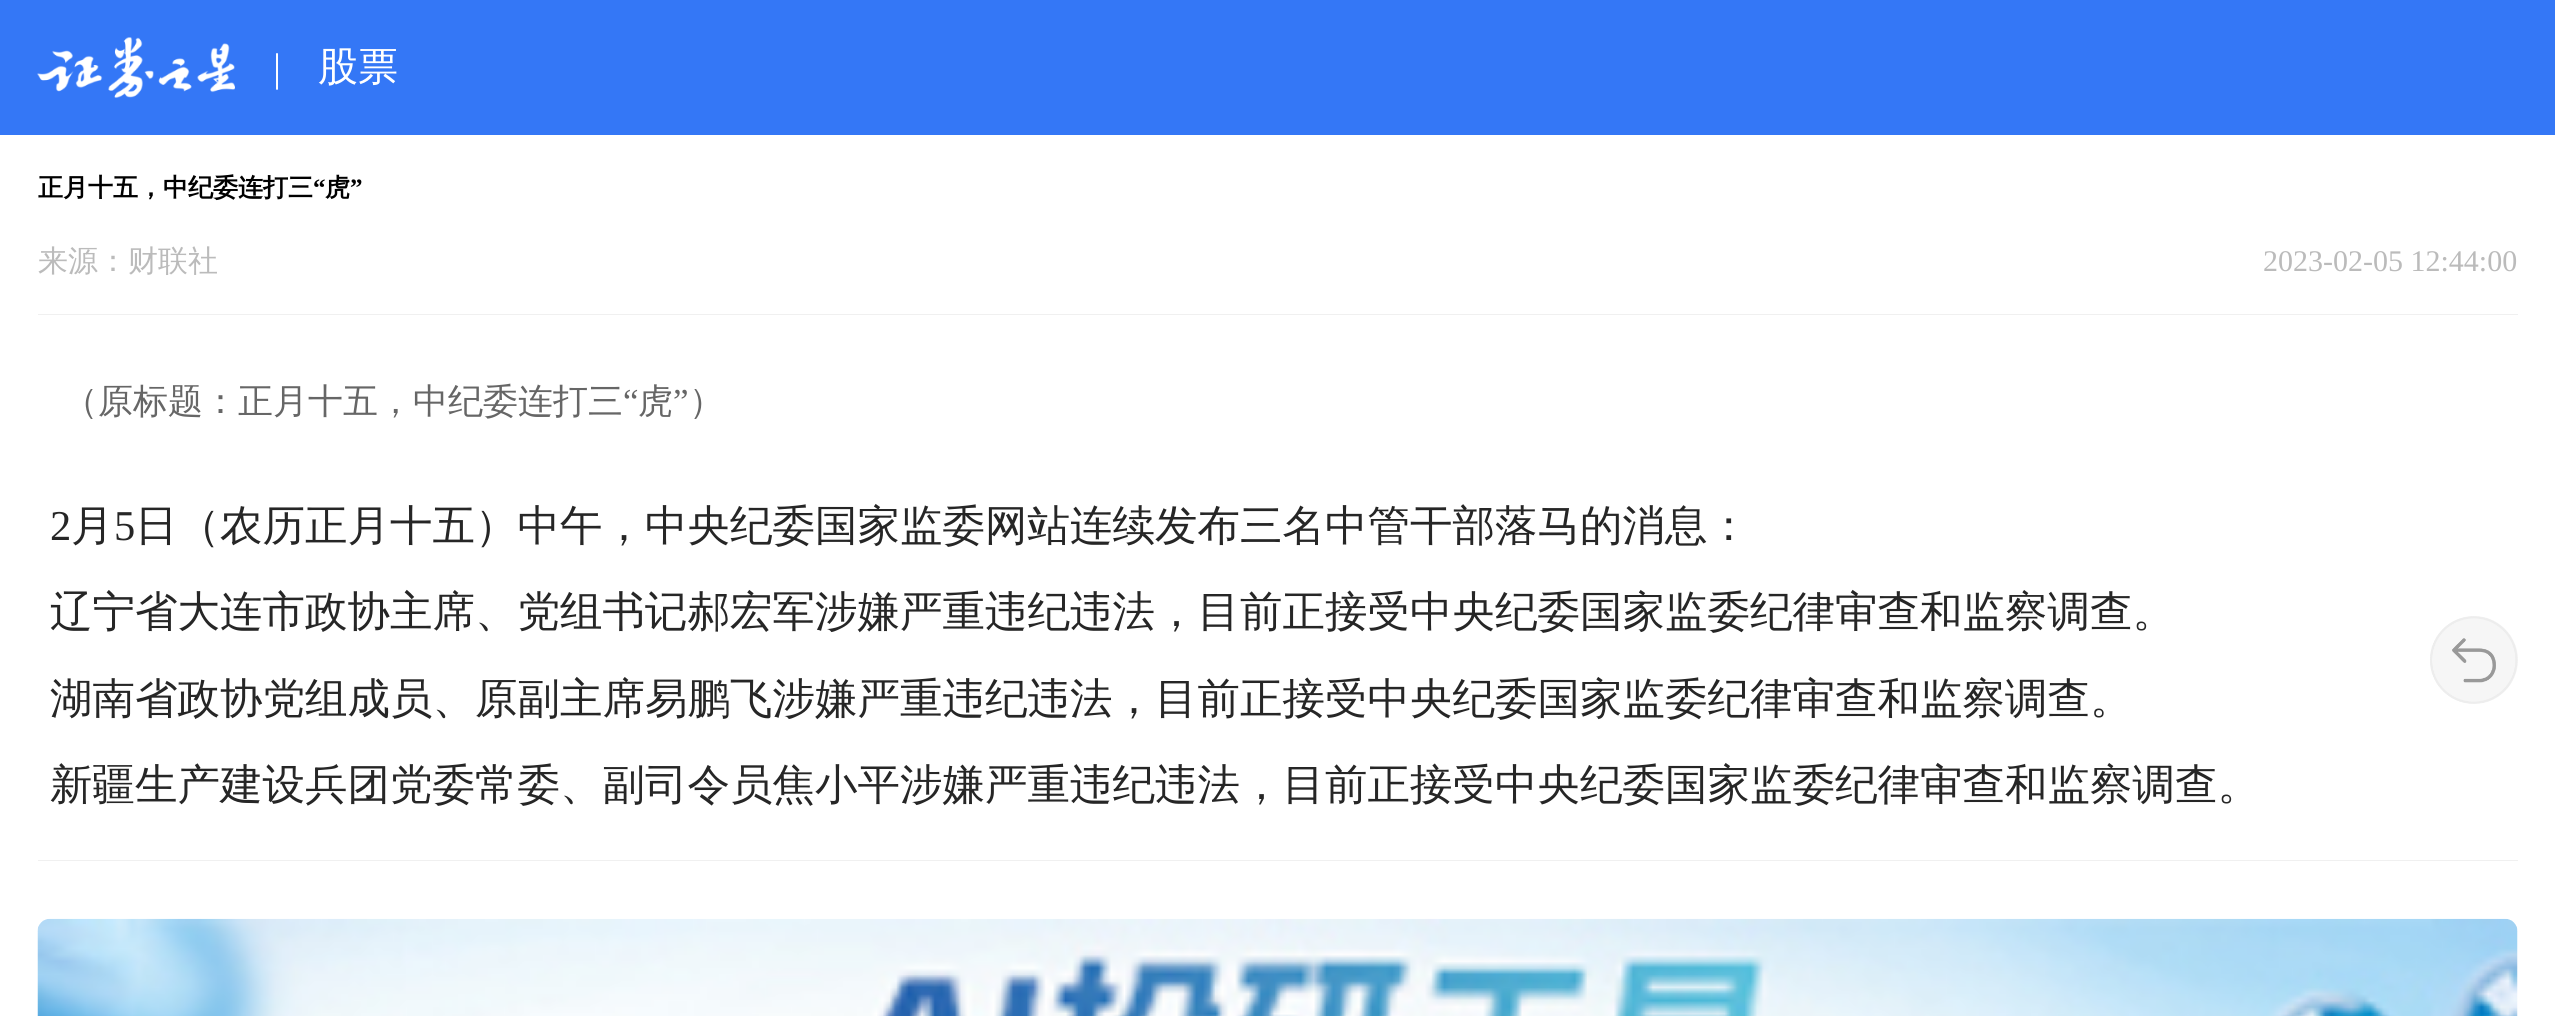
#include <cairo/cairo.h>
#include <math.h>
#include <stddef.h>


static void draw_image(cairo_t *cr, const char *path, double x, double y, double w, double h) {
  cairo_surface_t *image = cairo_image_surface_create_from_png(path);
  cairo_save(cr);
  cairo_set_source_surface(cr, image, x, y);
  cairo_rectangle(cr, x, y, w, h);
  cairo_fill(cr);
  cairo_restore(cr);
  cairo_surface_destroy(image);
}

static void draw(cairo_t *cr) {
  cairo_set_source_rgb(cr, 1, 1, 1);
  cairo_paint(cr);
  cairo_set_source_rgb(cr, 52 / 255.0, 119 / 255.0, 246 / 255.0);
  cairo_rectangle(cr, 0, 0, 2555, 135);
  cairo_fill(cr);
  draw_image(cr, "images/1.png", 37, 37, 198, 61);
  cairo_set_source_rgb(cr, 240 / 255.0, 240 / 255.0, 240 / 255.0);
  cairo_rectangle(cr, 38, 314, 2480, 1);
  cairo_fill(cr);
  cairo_set_source_rgb(cr, 246 / 255.0, 246 / 255.0, 246 / 255.0);
  cairo_arc(cr, 2474, 660, 44, 0, 2 * M_PI);
  cairo_fill(cr);
  draw_image(cr, "images/2.png", 2430, 616, 88, 88);
  cairo_set_source_rgb(cr, 240 / 255.0, 240 / 255.0, 240 / 255.0);
  cairo_rectangle(cr, 38, 860, 2480, 1);
  cairo_fill(cr);
  draw_image(cr, "images/3.png", 37, 918, 2481, 98);
  cairo_select_font_face(cr, "Liberation Serif", CAIRO_FONT_SLANT_NORMAL, CAIRO_FONT_WEIGHT_NORMAL);
  cairo_set_font_size(cr, 40);
  cairo_set_source_rgb(cr, 1, 1, 1);
  cairo_move_to(cr, 273, 81);
  cairo_show_text(cr, "|");
  cairo_select_font_face(cr, "WenQuanYi Zen Hei Medium", CAIRO_FONT_SLANT_NORMAL, CAIRO_FONT_WEIGHT_NORMAL);
  cairo_move_to(cr, 318, 80);
  cairo_show_text(cr, "股票");
  cairo_select_font_face(cr, "WenQuanYi Zen Hei", CAIRO_FONT_SLANT_NORMAL, CAIRO_FONT_WEIGHT_BOLD);
  cairo_set_font_size(cr, 25);
  cairo_set_source_rgb(cr, 0, 0, 0);
  cairo_move_to(cr, 38, 196);
  cairo_show_text(cr, "正月十五，中纪委连打三");
  cairo_select_font_face(cr, "Liberation Serif", CAIRO_FONT_SLANT_NORMAL, CAIRO_FONT_WEIGHT_BOLD);
  cairo_move_to(cr, 313, 196);
  cairo_show_text(cr, "“");
  cairo_select_font_face(cr, "WenQuanYi Zen Hei", CAIRO_FONT_SLANT_NORMAL, CAIRO_FONT_WEIGHT_BOLD);
  cairo_move_to(cr, 325, 196);
  cairo_show_text(cr, "虎");
  cairo_select_font_face(cr, "Liberation Serif", CAIRO_FONT_SLANT_NORMAL, CAIRO_FONT_WEIGHT_BOLD);
  cairo_move_to(cr, 350, 196);
  cairo_show_text(cr, "”");
  cairo_select_font_face(cr, "WenQuanYi Zen Hei Medium", CAIRO_FONT_SLANT_NORMAL, CAIRO_FONT_WEIGHT_NORMAL);
  cairo_set_font_size(cr, 30);
  cairo_set_source_rgb(cr, 187 / 255.0, 187 / 255.0, 187 / 255.0);
  cairo_move_to(cr, 38, 271);
  cairo_show_text(cr, "来源：财联社");
  cairo_select_font_face(cr, "Liberation Serif", CAIRO_FONT_SLANT_NORMAL, CAIRO_FONT_WEIGHT_NORMAL);
  cairo_move_to(cr, 2263, 271);
  cairo_show_text(cr, "2023-02-05 12:44:00");
  cairo_select_font_face(cr, "WenQuanYi Zen Hei Medium", CAIRO_FONT_SLANT_NORMAL, CAIRO_FONT_WEIGHT_NORMAL);
  cairo_set_font_size(cr, 35);
  cairo_set_source_rgb(cr, 102 / 255.0, 102 / 255.0, 102 / 255.0);
  cairo_move_to(cr, 63, 413);
  cairo_show_text(cr, "（原标题：正月十五，中纪委连打三");
  cairo_select_font_face(cr, "Liberation Serif", CAIRO_FONT_SLANT_NORMAL, CAIRO_FONT_WEIGHT_NORMAL);
  cairo_move_to(cr, 623, 413);
  cairo_show_text(cr, "“");
  cairo_select_font_face(cr, "WenQuanYi Zen Hei Medium", CAIRO_FONT_SLANT_NORMAL, CAIRO_FONT_WEIGHT_NORMAL);
  cairo_move_to(cr, 638, 413);
  cairo_show_text(cr, "虎");
  cairo_select_font_face(cr, "Liberation Serif", CAIRO_FONT_SLANT_NORMAL, CAIRO_FONT_WEIGHT_NORMAL);
  cairo_move_to(cr, 673, 413);
  cairo_show_text(cr, "”");
  cairo_select_font_face(cr, "WenQuanYi Zen Hei Medium", CAIRO_FONT_SLANT_NORMAL, CAIRO_FONT_WEIGHT_NORMAL);
  cairo_move_to(cr, 689, 413);
  cairo_show_text(cr, "）");
  cairo_select_font_face(cr, "Liberation Serif", CAIRO_FONT_SLANT_NORMAL, CAIRO_FONT_WEIGHT_NORMAL);
  cairo_set_font_size(cr, 42.5);
  cairo_set_source_rgb(cr, 38 / 255.0, 38 / 255.0, 38 / 255.0);
  cairo_move_to(cr, 50, 540);
  cairo_show_text(cr, "2");
  cairo_select_font_face(cr, "WenQuanYi Zen Hei Medium", CAIRO_FONT_SLANT_NORMAL, CAIRO_FONT_WEIGHT_NORMAL);
  cairo_move_to(cr, 71, 540);
  cairo_show_text(cr, "月");
  cairo_select_font_face(cr, "Liberation Serif", CAIRO_FONT_SLANT_NORMAL, CAIRO_FONT_WEIGHT_NORMAL);
  cairo_move_to(cr, 114, 540);
  cairo_show_text(cr, "5");
  cairo_select_font_face(cr, "WenQuanYi Zen Hei Medium", CAIRO_FONT_SLANT_NORMAL, CAIRO_FONT_WEIGHT_NORMAL);
  cairo_move_to(cr, 135, 540);
  cairo_show_text(cr, "日（农历正月十五）中午，中央纪委国家监委网站连续发布三名中管干部落马的消息：");
  cairo_move_to(cr, 50, 626);
  cairo_show_text(cr, "辽宁省大连市政协主席、党组书记郝宏军涉嫌严重违纪违法，目前正接受中央纪委国家监委纪律审查和监察调查。");
  cairo_move_to(cr, 50, 713);
  cairo_show_text(cr, "湖南省政协党组成员、原副主席易鹏飞涉嫌严重违纪违法，目前正接受中央纪委国家监委纪律审查和监察调查。");
  cairo_move_to(cr, 50, 799);
  cairo_show_text(cr, "新疆生产建设兵团党委常委、副司令员焦小平涉嫌严重违纪违法，目前正接受中央纪委国家监委纪律审查和监察调查。");
}

int main(void) {
  cairo_surface_t *surface = cairo_image_surface_create(CAIRO_FORMAT_RGB24, 2555, 1016);
  cairo_t *cr = cairo_create(surface);
  cairo_font_options_t *options = cairo_font_options_create();
  cairo_font_options_set_hint_metrics(options, CAIRO_HINT_METRICS_OFF);
  cairo_font_options_set_hint_style(options, CAIRO_HINT_STYLE_NONE);
  cairo_set_font_options(cr, options);
  cairo_set_miter_limit(cr, 4);
  draw(cr);
  cairo_surface_write_to_png(surface, "out.png");
  cairo_font_options_destroy(options);
  cairo_destroy(cr);
  cairo_surface_destroy(surface);
  return 0;
}
